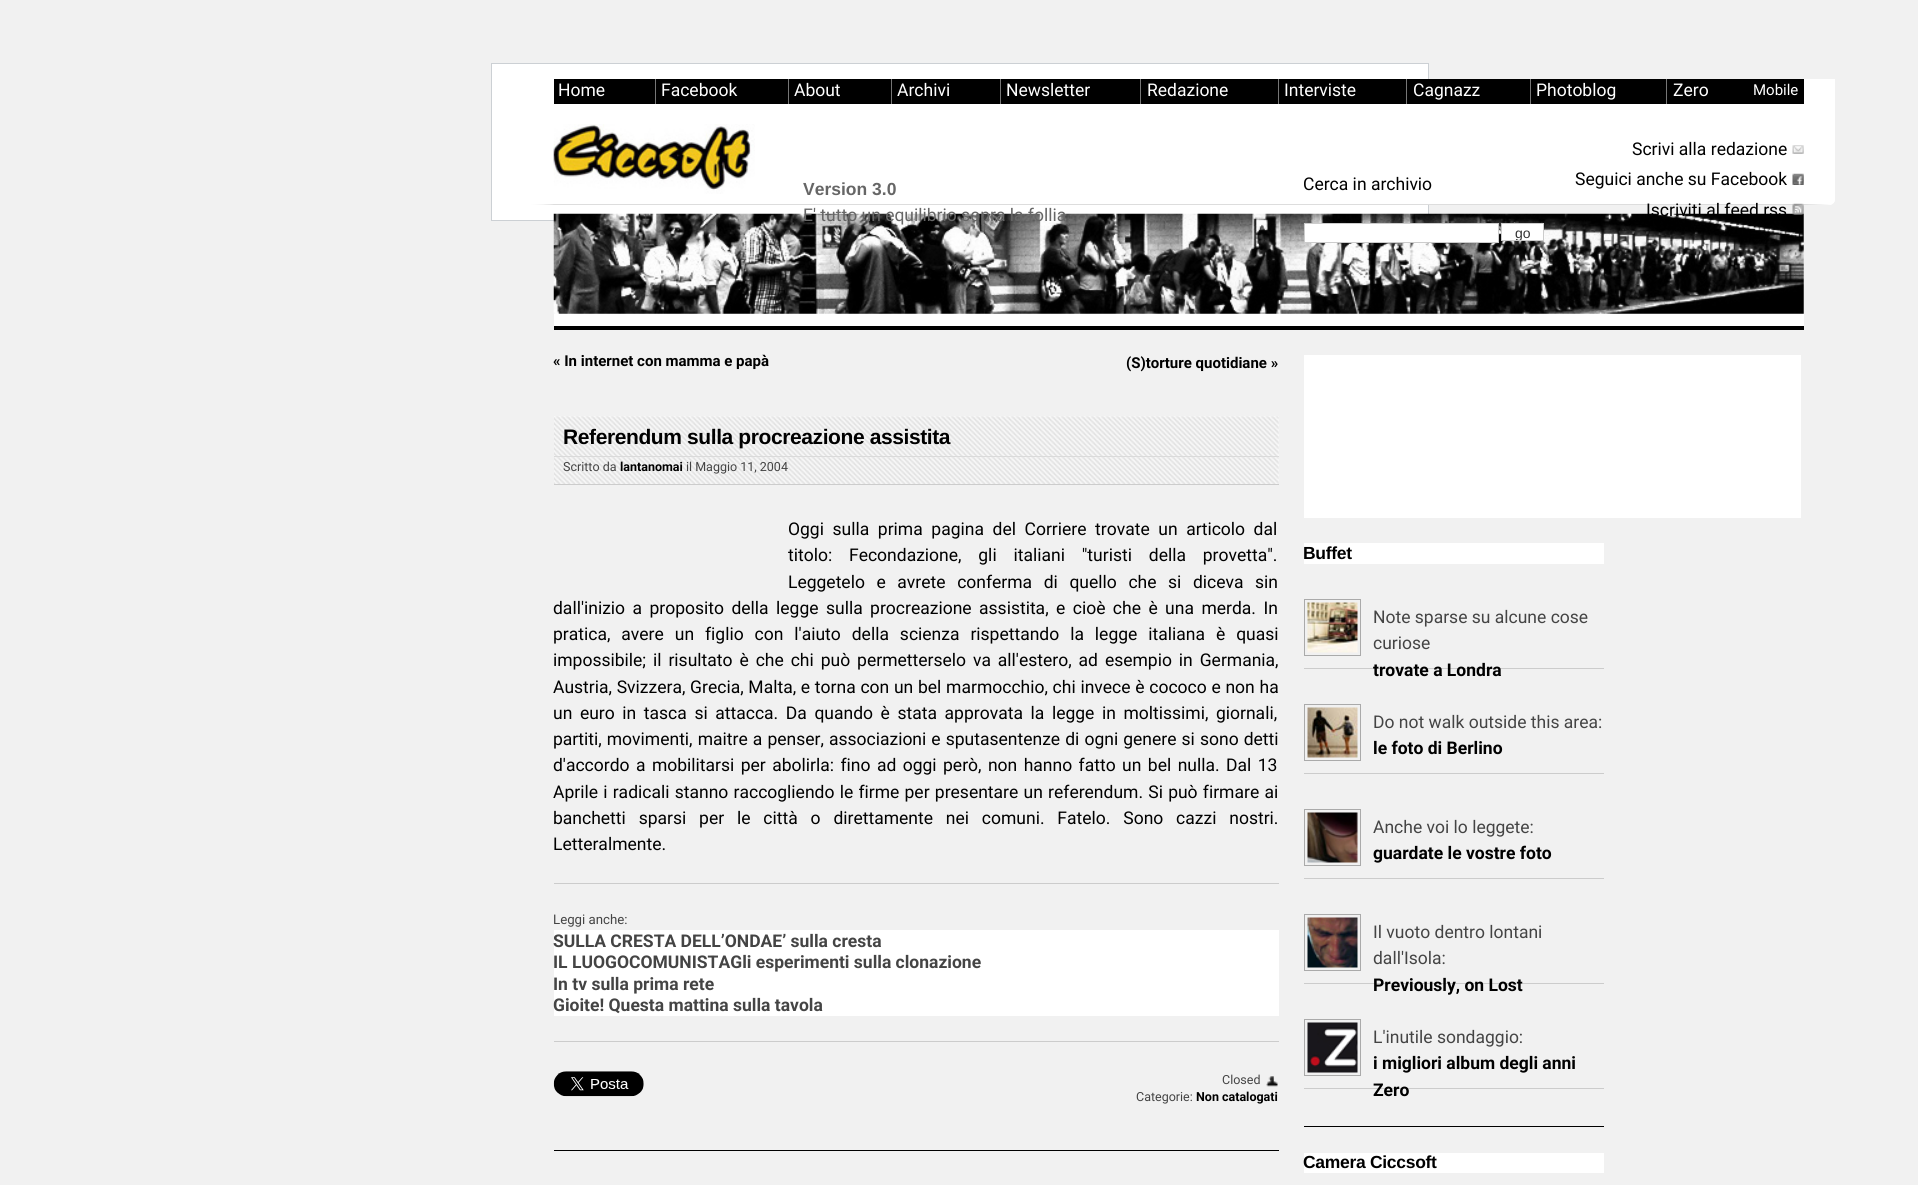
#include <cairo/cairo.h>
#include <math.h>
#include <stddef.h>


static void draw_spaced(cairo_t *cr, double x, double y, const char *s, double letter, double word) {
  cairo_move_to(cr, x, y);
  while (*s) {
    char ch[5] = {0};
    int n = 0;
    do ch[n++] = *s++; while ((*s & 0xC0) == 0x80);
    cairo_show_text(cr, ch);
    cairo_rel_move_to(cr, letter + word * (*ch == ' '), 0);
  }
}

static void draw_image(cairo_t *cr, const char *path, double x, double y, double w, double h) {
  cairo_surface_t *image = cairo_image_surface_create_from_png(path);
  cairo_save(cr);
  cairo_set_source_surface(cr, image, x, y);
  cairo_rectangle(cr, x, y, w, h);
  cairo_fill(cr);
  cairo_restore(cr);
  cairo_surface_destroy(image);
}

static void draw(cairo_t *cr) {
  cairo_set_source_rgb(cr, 241 / 255.0, 241 / 255.0, 241 / 255.0);
  cairo_paint(cr);
  cairo_set_source_rgb(cr, 1, 1, 1);
  cairo_rectangle(cr, 491.5, 63.5, 937, 157);
  cairo_fill_preserve(cr);
  cairo_set_source_rgb(cr, 204 / 255.0, 208 / 255.0, 212 / 255.0);
  cairo_set_line_width(cr, 1);
  cairo_stroke(cr);
  cairo_set_source_rgb(cr, 1, 1, 1);
  cairo_new_path(cr);
  cairo_move_to(cr, 523, 79);
  cairo_line_to(cr, 1835, 79);
  cairo_line_to(cr, 1835, 199);
  cairo_curve_to(cr, 1835, 202.5, 1832.5, 205, 1829, 205);
  cairo_line_to(cr, 529, 205);
  cairo_curve_to(cr, 525.5, 205, 523, 202.5, 523, 199);
  cairo_close_path(cr);
  cairo_fill(cr);
  cairo_new_path(cr);
  cairo_move_to(cr, 1830, 205);
  cairo_line_to(cr, 1804, 204);
  cairo_line_to(cr, 1804, 79);
  cairo_line_to(cr, 1835, 79);
  cairo_line_to(cr, 1835, 199);
  cairo_curve_to(cr, 1835, 202, 1833, 204, 1830, 205);
  cairo_close_path(cr);
  cairo_fill(cr);
  cairo_set_source_rgb(cr, 221 / 255.0, 221 / 255.0, 221 / 255.0);
  cairo_new_path(cr);
  cairo_move_to(cr, 529, 205);
  cairo_line_to(cr, 1830, 205);
  cairo_line_to(cr, 1804, 204);
  cairo_line_to(cr, 554, 204);
  cairo_line_to(cr, 527, 205);
  cairo_close_path(cr);
  cairo_fill(cr);
  cairo_set_source_rgb(cr, 1, 1, 1);
  cairo_new_path(cr);
  cairo_move_to(cr, 554, 79);
  cairo_line_to(cr, 554, 204);
  cairo_line_to(cr, 527, 205);
  cairo_curve_to(cr, 525, 204, 523, 203, 522, 201);
  cairo_line_to(cr, 522, 79);
  cairo_close_path(cr);
  cairo_fill(cr);
  draw_image(cr, "images/1.png", 553, 124, 202, 70);
  cairo_set_source_rgb(cr, 0, 0, 0);
  cairo_rectangle(cr, 554, 79, 1250, 25);
  cairo_fill(cr);
  cairo_set_source_rgb(cr, 118 / 255.0, 118 / 255.0, 118 / 255.0);
  cairo_rectangle(cr, 655, 79, 1, 25);
  cairo_fill(cr);
  cairo_rectangle(cr, 788, 79, 1, 25);
  cairo_fill(cr);
  cairo_rectangle(cr, 891, 79, 1, 25);
  cairo_fill(cr);
  cairo_rectangle(cr, 1000, 79, 1, 25);
  cairo_fill(cr);
  cairo_rectangle(cr, 1140, 79, 1, 25);
  cairo_fill(cr);
  cairo_rectangle(cr, 1278, 79, 1, 25);
  cairo_fill(cr);
  cairo_rectangle(cr, 1406, 79, 1, 25);
  cairo_fill(cr);
  cairo_rectangle(cr, 1530, 79, 1, 25);
  cairo_fill(cr);
  cairo_rectangle(cr, 1666, 79, 1, 25);
  cairo_fill(cr);
  cairo_set_source_rgb(cr, 1, 1, 1);
  cairo_rectangle(cr, 554, 214, 1250, 112);
  cairo_fill(cr);
  draw_image(cr, "images/5.png", 553, 213, 1251, 101);
  cairo_rectangle(cr, 1304.5, 223.5, 194, 19);
  cairo_fill_preserve(cr);
  cairo_set_source_rgb(cr, 204 / 255.0, 204 / 255.0, 204 / 255.0);
  cairo_stroke(cr);
  cairo_set_source_rgb(cr, 1, 1, 1);
  cairo_rectangle(cr, 1501.5, 223.5, 42, 17);
  cairo_fill_preserve(cr);
  cairo_set_source_rgb(cr, 204 / 255.0, 204 / 255.0, 204 / 255.0);
  cairo_stroke(cr);
  draw_image(cr, "images/2.png", 1792, 145, 12, 9);
  draw_image(cr, "images/3.png", 1792, 173, 12, 12);
  draw_image(cr, "images/4.png", 1792, 203, 12, 12);
  cairo_set_source_rgb(cr, 0, 0, 0);
  cairo_rectangle(cr, 554, 326, 1250, 4);
  cairo_fill(cr);
  cairo_rectangle(cr, 554, 1150, 725, 1);
  cairo_fill(cr);
  cairo_set_source_rgb(cr, 1, 1, 1);
  cairo_rectangle(cr, 554, 416, 725, 68);
  cairo_fill(cr);
  draw_image(cr, "images/6.png", 554, 416, 725, 68);
  cairo_set_source_rgb(cr, 204 / 255.0, 204 / 255.0, 204 / 255.0);
  cairo_rectangle(cr, 554, 484, 725, 1);
  cairo_fill(cr);
  cairo_set_source_rgb(cr, 218 / 255.0, 218 / 255.0, 218 / 255.0);
  cairo_rectangle(cr, 554, 456, 725, 1);
  cairo_fill(cr);
  cairo_set_source_rgb(cr, 204 / 255.0, 204 / 255.0, 204 / 255.0);
  cairo_rectangle(cr, 554, 883, 725, 1);
  cairo_fill(cr);
  cairo_rectangle(cr, 554, 1041, 725, 1);
  cairo_fill(cr);
  cairo_set_source_rgb(cr, 1, 1, 1);
  cairo_rectangle(cr, 554, 930, 725, 86);
  cairo_fill(cr);
  draw_image(cr, "images/7.png", 553, 1071, 91, 26);
  draw_image(cr, "images/8.png", 1266, 1076, 12, 11);
  cairo_rectangle(cr, 1304, 355, 497, 163);
  cairo_fill(cr);
  cairo_set_source_rgb(cr, 0, 0, 0);
  cairo_rectangle(cr, 1304, 1126, 300, 1);
  cairo_fill(cr);
  cairo_set_source_rgb(cr, 1, 1, 1);
  cairo_rectangle(cr, 1304, 543, 300, 21);
  cairo_fill(cr);
  cairo_set_source_rgb(cr, 204 / 255.0, 204 / 255.0, 204 / 255.0);
  cairo_rectangle(cr, 1304, 668, 300, 1);
  cairo_fill(cr);
  cairo_rectangle(cr, 1304.5, 599.5, 56, 56);
  cairo_set_source_rgb(cr, 170 / 255.0, 170 / 255.0, 170 / 255.0);
  cairo_stroke(cr);
  draw_image(cr, "images/9.png", 1307, 602, 51, 51);
  cairo_set_source_rgb(cr, 204 / 255.0, 204 / 255.0, 204 / 255.0);
  cairo_rectangle(cr, 1304, 773, 300, 1);
  cairo_fill(cr);
  cairo_rectangle(cr, 1304.5, 704.5, 56, 56);
  cairo_set_source_rgb(cr, 170 / 255.0, 170 / 255.0, 170 / 255.0);
  cairo_stroke(cr);
  draw_image(cr, "images/10.png", 1307, 707, 51, 51);
  cairo_set_source_rgb(cr, 204 / 255.0, 204 / 255.0, 204 / 255.0);
  cairo_rectangle(cr, 1304, 878, 300, 1);
  cairo_fill(cr);
  cairo_rectangle(cr, 1304.5, 809.5, 56, 56);
  cairo_set_source_rgb(cr, 170 / 255.0, 170 / 255.0, 170 / 255.0);
  cairo_stroke(cr);
  draw_image(cr, "images/11.png", 1307, 812, 51, 51);
  cairo_set_source_rgb(cr, 204 / 255.0, 204 / 255.0, 204 / 255.0);
  cairo_rectangle(cr, 1304, 983, 300, 1);
  cairo_fill(cr);
  cairo_rectangle(cr, 1304.5, 914.5, 56, 56);
  cairo_set_source_rgb(cr, 170 / 255.0, 170 / 255.0, 170 / 255.0);
  cairo_stroke(cr);
  draw_image(cr, "images/12.png", 1307, 917, 51, 51);
  cairo_set_source_rgb(cr, 204 / 255.0, 204 / 255.0, 204 / 255.0);
  cairo_rectangle(cr, 1304, 1088, 300, 1);
  cairo_fill(cr);
  cairo_rectangle(cr, 1304.5, 1019.5, 56, 56);
  cairo_set_source_rgb(cr, 170 / 255.0, 170 / 255.0, 170 / 255.0);
  cairo_stroke(cr);
  draw_image(cr, "images/13.png", 1307, 1022, 51, 51);
  cairo_set_source_rgb(cr, 1, 1, 1);
  cairo_rectangle(cr, 1304, 1153, 300, 20);
  cairo_fill(cr);
  cairo_select_font_face(cr, "Roboto", CAIRO_FONT_SLANT_NORMAL, CAIRO_FONT_WEIGHT_NORMAL);
  cairo_set_font_size(cr, 17.5);
  cairo_move_to(cr, 558, 96);
  cairo_show_text(cr, "Home");
  cairo_move_to(cr, 661, 96);
  cairo_show_text(cr, "Facebook");
  cairo_move_to(cr, 794, 96);
  cairo_show_text(cr, "About");
  cairo_move_to(cr, 897, 96);
  cairo_show_text(cr, "Archivi");
  cairo_move_to(cr, 1006, 96);
  cairo_show_text(cr, "Newsletter");
  cairo_move_to(cr, 1147, 96);
  cairo_show_text(cr, "Redazione");
  cairo_move_to(cr, 1284, 96);
  cairo_show_text(cr, "Interviste");
  cairo_move_to(cr, 1413, 96);
  cairo_show_text(cr, "Cagnazz");
  cairo_move_to(cr, 1536, 96);
  cairo_show_text(cr, "Photoblog");
  cairo_move_to(cr, 1673, 96);
  cairo_show_text(cr, "Zero");
  cairo_set_font_size(cr, 15);
  cairo_move_to(cr, 1753, 95);
  cairo_show_text(cr, "Mobile");
  cairo_select_font_face(cr, "Liberation Sans", CAIRO_FONT_SLANT_NORMAL, CAIRO_FONT_WEIGHT_BOLD);
  cairo_set_font_size(cr, 17.5);
  cairo_set_source_rgb(cr, 102 / 255.0, 102 / 255.0, 102 / 255.0);
  cairo_move_to(cr, 803, 195);
  cairo_show_text(cr, "Version 3.0");
  cairo_select_font_face(cr, "Roboto", CAIRO_FONT_SLANT_NORMAL, CAIRO_FONT_WEIGHT_NORMAL);
  cairo_move_to(cr, 803, 221);
  cairo_show_text(cr, "E' tutto un equilibrio sopra la follia");
  cairo_set_source_rgb(cr, 0, 0, 0);
  cairo_move_to(cr, 1303, 190);
  cairo_show_text(cr, "Cerca in archivio");
  cairo_save(cr);
  cairo_rectangle(cr, 1503, 224, 40, 16);
  cairo_clip(cr);
  cairo_select_font_face(cr, "Liberation Sans", CAIRO_FONT_SLANT_NORMAL, CAIRO_FONT_WEIGHT_NORMAL);
  cairo_set_font_size(cr, 14);
  cairo_set_source_rgb(cr, 51 / 255.0, 51 / 255.0, 51 / 255.0);
  cairo_move_to(cr, 1515, 238);
  cairo_show_text(cr, "go");
  cairo_restore(cr);
  cairo_move_to(cr, 1632, 155);
  cairo_show_text(cr, "Scrivi alla redazione");
  cairo_move_to(cr, 1575, 185);
  cairo_show_text(cr, "Seguici anche su Facebook");
  cairo_move_to(cr, 1646, 216);
  cairo_show_text(cr, "Iscriviti al feed rss");
  cairo_select_font_face(cr, "Roboto", CAIRO_FONT_SLANT_NORMAL, CAIRO_FONT_WEIGHT_BOLD);
  cairo_set_font_size(cr, 15);
  cairo_move_to(cr, 553, 366);
  cairo_show_text(cr, "« In internet con mamma e papà");
  cairo_move_to(cr, 1126, 368);
  cairo_show_text(cr, "(S)torture quotidiane »");
  cairo_select_font_face(cr, "Liberation Sans", CAIRO_FONT_SLANT_NORMAL, CAIRO_FONT_WEIGHT_BOLD);
  cairo_set_font_size(cr, 21);
  draw_spaced(cr, 563, 444, "Referendum sulla procreazione assistita", -0.4, 0);
  cairo_select_font_face(cr, "Roboto", CAIRO_FONT_SLANT_NORMAL, CAIRO_FONT_WEIGHT_NORMAL);
  cairo_set_font_size(cr, 12.5);
  cairo_set_source_rgb(cr, 68 / 255.0, 68 / 255.0, 68 / 255.0);
  cairo_move_to(cr, 563, 471);
  cairo_show_text(cr, "Scritto da");
  cairo_select_font_face(cr, "Roboto", CAIRO_FONT_SLANT_NORMAL, CAIRO_FONT_WEIGHT_BOLD);
  cairo_set_source_rgb(cr, 0, 0, 0);
  cairo_move_to(cr, 620, 471);
  cairo_show_text(cr, "lantanomai");
  cairo_select_font_face(cr, "Roboto", CAIRO_FONT_SLANT_NORMAL, CAIRO_FONT_WEIGHT_NORMAL);
  cairo_set_source_rgb(cr, 68 / 255.0, 68 / 255.0, 68 / 255.0);
  cairo_move_to(cr, 686, 471);
  cairo_show_text(cr, "il Maggio 11, 2004");
  cairo_set_font_size(cr, 17.5);
  cairo_set_source_rgb(cr, 0, 0, 0);
  draw_spaced(cr, 788, 535, "Oggi sulla prima pagina del Corriere trovate un articolo dal", 0, 4.25);
  draw_spaced(cr, 788, 561, "titolo: Fecondazione, gli italiani \"turisti della provetta\".", 0, 12.5);
  draw_spaced(cr, 788, 588, "Leggetelo e avrete conferma di quello che si diceva sin", 0, 7.25);
  draw_spaced(cr, 553, 614, "dall'inizio a proposito della legge sulla procreazione assistita, e cioè che è una merda. In", 0, 3.1);
  draw_spaced(cr, 553, 640, "pratica, avere un figlio con l'aiuto della scienza rispettando la legge italiana è quasi", 0, 6.6);
  draw_spaced(cr, 553, 666, "impossibile; il risultato è che chi può permetterselo va all'estero, ad esempio in Germania,", 0, 2.6);
  draw_spaced(cr, 553, 693, "Austria, Svizzera, Grecia, Malta, e torna con un bel marmocchio, chi invece è cococo e non ha", 0, 0.4);
  draw_spaced(cr, 553, 719, "un euro in tasca si attacca. Da quando è stata approvata la legge in moltissimi, giornali,", 0, 3.25);
  draw_spaced(cr, 553, 745, "partiti, movimenti, maitre a penser, associazioni e sputasentenze di ogni genere si sono detti", 0, 0.75);
  draw_spaced(cr, 553, 771, "d'accordo a mobilitarsi per abolirla: fino ad oggi però, non hanno fatto un bel nulla. Dal 13", 0, 2.1);
  draw_spaced(cr, 553, 798, "Aprile i radicali stanno raccogliendo le firme per presentare un referendum. Si può firmare ai", 0, 0.9);
  draw_spaced(cr, 553, 824, "banchetti sparsi per le città o direttamente nei comuni. Fatelo. Sono cazzi nostri.", 0, 8.5);
  cairo_move_to(cr, 553, 850);
  cairo_show_text(cr, "Letteralmente.");
  cairo_set_font_size(cr, 13.25);
  cairo_set_source_rgb(cr, 68 / 255.0, 68 / 255.0, 68 / 255.0);
  cairo_move_to(cr, 553, 924);
  cairo_show_text(cr, "Leggi anche:");
  cairo_select_font_face(cr, "Roboto", CAIRO_FONT_SLANT_NORMAL, CAIRO_FONT_WEIGHT_BOLD);
  cairo_set_font_size(cr, 17.5);
  cairo_move_to(cr, 553, 947);
  cairo_show_text(cr, "SULLA CRESTA DELL’ONDAE’ sulla cresta");
  cairo_move_to(cr, 553, 968);
  cairo_show_text(cr, "IL LUOGOCOMUNISTAGli esperimenti sulla clonazione");
  cairo_move_to(cr, 553, 990);
  cairo_show_text(cr, "In tv sulla prima rete");
  cairo_move_to(cr, 553, 1011);
  cairo_show_text(cr, "Gioite! Questa mattina sulla tavola");
  cairo_select_font_face(cr, "Roboto", CAIRO_FONT_SLANT_NORMAL, CAIRO_FONT_WEIGHT_NORMAL);
  cairo_set_font_size(cr, 12.5);
  cairo_move_to(cr, 1222, 1084);
  cairo_show_text(cr, "Closed");
  cairo_move_to(cr, 1136, 1101);
  cairo_show_text(cr, "Categorie:");
  cairo_select_font_face(cr, "Roboto", CAIRO_FONT_SLANT_NORMAL, CAIRO_FONT_WEIGHT_BOLD);
  cairo_set_source_rgb(cr, 0, 0, 0);
  cairo_move_to(cr, 1196, 1101);
  cairo_show_text(cr, "Non catalogati");
  cairo_select_font_face(cr, "Liberation Sans", CAIRO_FONT_SLANT_NORMAL, CAIRO_FONT_WEIGHT_BOLD);
  cairo_set_font_size(cr, 17.5);
  draw_spaced(cr, 1303, 559, "Buffet", -0.3, 0);
  cairo_select_font_face(cr, "Roboto", CAIRO_FONT_SLANT_NORMAL, CAIRO_FONT_WEIGHT_NORMAL);
  cairo_set_source_rgb(cr, 68 / 255.0, 68 / 255.0, 68 / 255.0);
  cairo_move_to(cr, 1373, 623);
  cairo_show_text(cr, "Note sparse su alcune cose");
  cairo_move_to(cr, 1373, 649);
  cairo_show_text(cr, "curiose");
  cairo_select_font_face(cr, "Roboto", CAIRO_FONT_SLANT_NORMAL, CAIRO_FONT_WEIGHT_BOLD);
  cairo_set_source_rgb(cr, 0, 0, 0);
  cairo_move_to(cr, 1373, 676);
  cairo_show_text(cr, "trovate a Londra");
  cairo_select_font_face(cr, "Roboto", CAIRO_FONT_SLANT_NORMAL, CAIRO_FONT_WEIGHT_NORMAL);
  cairo_set_source_rgb(cr, 68 / 255.0, 68 / 255.0, 68 / 255.0);
  cairo_move_to(cr, 1373, 728);
  cairo_show_text(cr, "Do not walk outside this area:");
  cairo_select_font_face(cr, "Roboto", CAIRO_FONT_SLANT_NORMAL, CAIRO_FONT_WEIGHT_BOLD);
  cairo_set_source_rgb(cr, 0, 0, 0);
  cairo_move_to(cr, 1373, 754);
  cairo_show_text(cr, "le foto di Berlino");
  cairo_select_font_face(cr, "Roboto", CAIRO_FONT_SLANT_NORMAL, CAIRO_FONT_WEIGHT_NORMAL);
  cairo_set_source_rgb(cr, 68 / 255.0, 68 / 255.0, 68 / 255.0);
  cairo_move_to(cr, 1373, 833);
  cairo_show_text(cr, "Anche voi lo leggete:");
  cairo_select_font_face(cr, "Roboto", CAIRO_FONT_SLANT_NORMAL, CAIRO_FONT_WEIGHT_BOLD);
  cairo_set_source_rgb(cr, 0, 0, 0);
  cairo_move_to(cr, 1373, 859);
  cairo_show_text(cr, "guardate le vostre foto");
  cairo_select_font_face(cr, "Roboto", CAIRO_FONT_SLANT_NORMAL, CAIRO_FONT_WEIGHT_NORMAL);
  cairo_set_source_rgb(cr, 68 / 255.0, 68 / 255.0, 68 / 255.0);
  cairo_move_to(cr, 1373, 938);
  cairo_show_text(cr, "Il vuoto dentro lontani");
  cairo_move_to(cr, 1373, 964);
  cairo_show_text(cr, "dall'Isola:");
  cairo_select_font_face(cr, "Roboto", CAIRO_FONT_SLANT_NORMAL, CAIRO_FONT_WEIGHT_BOLD);
  cairo_set_source_rgb(cr, 0, 0, 0);
  cairo_move_to(cr, 1373, 991);
  cairo_show_text(cr, "Previously, on Lost");
  cairo_select_font_face(cr, "Roboto", CAIRO_FONT_SLANT_NORMAL, CAIRO_FONT_WEIGHT_NORMAL);
  cairo_set_source_rgb(cr, 68 / 255.0, 68 / 255.0, 68 / 255.0);
  cairo_move_to(cr, 1373, 1043);
  cairo_show_text(cr, "L'inutile sondaggio:");
  cairo_select_font_face(cr, "Roboto", CAIRO_FONT_SLANT_NORMAL, CAIRO_FONT_WEIGHT_BOLD);
  cairo_set_source_rgb(cr, 0, 0, 0);
  cairo_move_to(cr, 1373, 1069);
  cairo_show_text(cr, "i migliori album degli anni");
  cairo_move_to(cr, 1373, 1096);
  cairo_show_text(cr, "Zero");
  cairo_select_font_face(cr, "Liberation Sans", CAIRO_FONT_SLANT_NORMAL, CAIRO_FONT_WEIGHT_BOLD);
  draw_spaced(cr, 1303, 1168, "Camera Ciccsoft", -0.3, 0);
}

int main(void) {
  cairo_surface_t *surface = cairo_image_surface_create(CAIRO_FORMAT_RGB24, 1918, 1185);
  cairo_t *cr = cairo_create(surface);
  cairo_font_options_t *options = cairo_font_options_create();
  cairo_font_options_set_hint_metrics(options, CAIRO_HINT_METRICS_OFF);
  cairo_font_options_set_hint_style(options, CAIRO_HINT_STYLE_NONE);
  cairo_set_font_options(cr, options);
  cairo_set_miter_limit(cr, 4);
  draw(cr);
  cairo_surface_write_to_png(surface, "out.png");
  cairo_font_options_destroy(options);
  cairo_destroy(cr);
  cairo_surface_destroy(surface);
  return 0;
}
